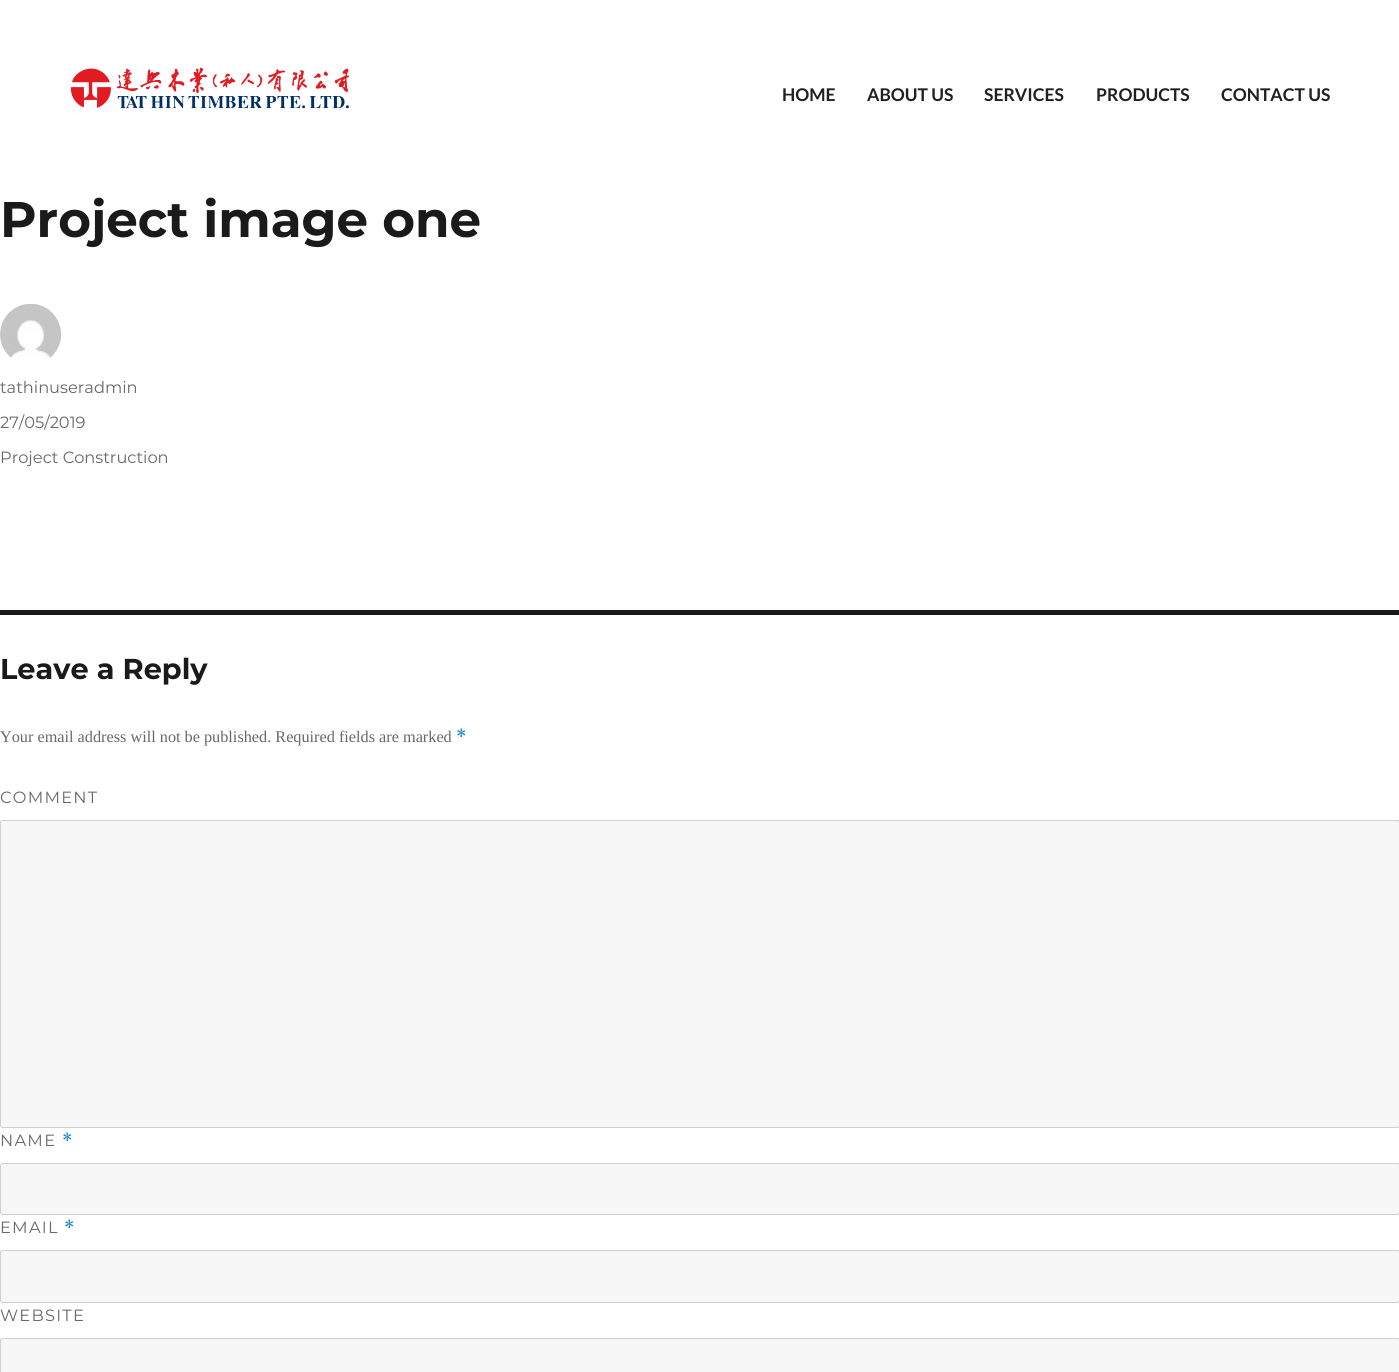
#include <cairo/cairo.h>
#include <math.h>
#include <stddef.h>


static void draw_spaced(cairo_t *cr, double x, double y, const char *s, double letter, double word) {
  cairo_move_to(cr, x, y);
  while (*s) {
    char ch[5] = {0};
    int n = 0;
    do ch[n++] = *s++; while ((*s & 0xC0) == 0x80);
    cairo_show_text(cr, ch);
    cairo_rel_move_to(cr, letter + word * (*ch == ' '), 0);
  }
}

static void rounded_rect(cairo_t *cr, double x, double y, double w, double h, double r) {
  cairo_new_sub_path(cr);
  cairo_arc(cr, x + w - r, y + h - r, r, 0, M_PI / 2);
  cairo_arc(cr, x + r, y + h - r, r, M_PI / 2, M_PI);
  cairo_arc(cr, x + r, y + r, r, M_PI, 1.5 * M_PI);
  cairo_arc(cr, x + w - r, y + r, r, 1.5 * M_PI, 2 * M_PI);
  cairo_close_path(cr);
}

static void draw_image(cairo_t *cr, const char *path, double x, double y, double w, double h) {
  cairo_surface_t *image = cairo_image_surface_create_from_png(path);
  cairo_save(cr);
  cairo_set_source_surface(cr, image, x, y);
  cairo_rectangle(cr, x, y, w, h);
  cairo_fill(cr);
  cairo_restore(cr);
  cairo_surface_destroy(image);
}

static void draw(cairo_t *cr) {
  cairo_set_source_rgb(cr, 1, 1, 1);
  cairo_paint(cr);
  draw_image(cr, "images/1.png", 70, 67, 280, 42);
  draw_image(cr, "images/2.png", 0, 304, 61, 56);
  cairo_set_source_rgb(cr, 26 / 255.0, 26 / 255.0, 26 / 255.0);
  cairo_rectangle(cr, 0, 610, 1399, 5);
  cairo_fill(cr);
  cairo_set_source_rgb(cr, 247 / 255.0, 247 / 255.0, 247 / 255.0);
  rounded_rect(cr, 0.5, 820.5, 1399, 307, 2);
  cairo_fill_preserve(cr);
  cairo_set_source_rgb(cr, 209 / 255.0, 209 / 255.0, 209 / 255.0);
  cairo_set_line_width(cr, 1);
  cairo_stroke(cr);
  cairo_set_source_rgb(cr, 247 / 255.0, 247 / 255.0, 247 / 255.0);
  rounded_rect(cr, 0.5, 1163.5, 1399, 51, 2);
  cairo_fill_preserve(cr);
  cairo_set_source_rgb(cr, 209 / 255.0, 209 / 255.0, 209 / 255.0);
  cairo_stroke(cr);
  cairo_set_source_rgb(cr, 247 / 255.0, 247 / 255.0, 247 / 255.0);
  rounded_rect(cr, 0.5, 1250.5, 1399, 52, 2);
  cairo_fill_preserve(cr);
  cairo_set_source_rgb(cr, 209 / 255.0, 209 / 255.0, 209 / 255.0);
  cairo_stroke(cr);
  cairo_set_source_rgb(cr, 247 / 255.0, 247 / 255.0, 247 / 255.0);
  rounded_rect(cr, 0.5, 1338.5, 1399, 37, 2);
  cairo_fill_preserve(cr);
  cairo_set_source_rgb(cr, 209 / 255.0, 209 / 255.0, 209 / 255.0);
  cairo_stroke(cr);
  cairo_select_font_face(cr, "Lato", CAIRO_FONT_SLANT_NORMAL, CAIRO_FONT_WEIGHT_BOLD);
  cairo_set_font_size(cr, 17.5);
  cairo_set_source_rgb(cr, 35 / 255.0, 31 / 255.0, 32 / 255.0);
  cairo_move_to(cr, 782, 101);
  cairo_show_text(cr, "HOME");
  cairo_move_to(cr, 867, 101);
  cairo_show_text(cr, "ABOUT US");
  cairo_move_to(cr, 984, 101);
  cairo_show_text(cr, "SERVICES");
  cairo_move_to(cr, 1096, 101);
  cairo_show_text(cr, "PRODUCTS");
  cairo_move_to(cr, 1221, 101);
  cairo_show_text(cr, "CONTACT US");
  cairo_select_font_face(cr, "Montserrat", CAIRO_FONT_SLANT_NORMAL, CAIRO_FONT_WEIGHT_BOLD);
  cairo_set_font_size(cr, 50);
  cairo_set_source_rgb(cr, 26 / 255.0, 26 / 255.0, 26 / 255.0);
  cairo_move_to(cr, 0, 237);
  cairo_show_text(cr, "Project image one");
  cairo_select_font_face(cr, "Montserrat", CAIRO_FONT_SLANT_NORMAL, CAIRO_FONT_WEIGHT_NORMAL);
  cairo_set_font_size(cr, 16.25);
  cairo_set_source_rgb(cr, 104 / 255.0, 104 / 255.0, 104 / 255.0);
  cairo_move_to(cr, 0, 393);
  cairo_show_text(cr, "tathinuseradmin");
  cairo_move_to(cr, 0, 428);
  cairo_show_text(cr, "27/05/2019");
  cairo_move_to(cr, 0, 463);
  cairo_show_text(cr, "Project Construction");
  cairo_select_font_face(cr, "Montserrat", CAIRO_FONT_SLANT_NORMAL, CAIRO_FONT_WEIGHT_BOLD);
  cairo_set_font_size(cr, 28.75);
  cairo_set_source_rgb(cr, 26 / 255.0, 26 / 255.0, 26 / 255.0);
  cairo_move_to(cr, 0, 679);
  cairo_show_text(cr, "Leave a Reply");
  cairo_select_font_face(cr, "Liberation Serif", CAIRO_FONT_SLANT_NORMAL, CAIRO_FONT_WEIGHT_NORMAL);
  cairo_set_font_size(cr, 16.25);
  cairo_set_source_rgb(cr, 104 / 255.0, 104 / 255.0, 104 / 255.0);
  cairo_move_to(cr, 0, 742);
  cairo_show_text(cr, "Your email address will not be published. Required fields are marked");
  cairo_select_font_face(cr, "Merriweather", CAIRO_FONT_SLANT_NORMAL, CAIRO_FONT_WEIGHT_NORMAL);
  cairo_set_source_rgb(cr, 0, 122 / 255.0, 204 / 255.0);
  cairo_move_to(cr, 456, 742);
  cairo_show_text(cr, "*");
  cairo_select_font_face(cr, "Montserrat", CAIRO_FONT_SLANT_NORMAL, CAIRO_FONT_WEIGHT_NORMAL);
  cairo_set_source_rgb(cr, 104 / 255.0, 104 / 255.0, 104 / 255.0);
  draw_spaced(cr, 0, 803, "COMMENT", 1.25, 0);
  draw_spaced(cr, 0, 1146, "NAME", 1.25, 0);
  cairo_select_font_face(cr, "Merriweather", CAIRO_FONT_SLANT_NORMAL, CAIRO_FONT_WEIGHT_NORMAL);
  cairo_set_source_rgb(cr, 0, 122 / 255.0, 204 / 255.0);
  draw_spaced(cr, 62, 1146, "*", 1.25, 0);
  cairo_select_font_face(cr, "Montserrat", CAIRO_FONT_SLANT_NORMAL, CAIRO_FONT_WEIGHT_NORMAL);
  cairo_set_source_rgb(cr, 104 / 255.0, 104 / 255.0, 104 / 255.0);
  draw_spaced(cr, 0, 1233, "EMAIL", 1.25, 0);
  cairo_select_font_face(cr, "Merriweather", CAIRO_FONT_SLANT_NORMAL, CAIRO_FONT_WEIGHT_NORMAL);
  cairo_set_source_rgb(cr, 0, 122 / 255.0, 204 / 255.0);
  draw_spaced(cr, 64, 1233, "*", 1.25, 0);
  cairo_select_font_face(cr, "Montserrat", CAIRO_FONT_SLANT_NORMAL, CAIRO_FONT_WEIGHT_NORMAL);
  cairo_set_source_rgb(cr, 104 / 255.0, 104 / 255.0, 104 / 255.0);
  draw_spaced(cr, 0, 1321, "WEBSITE", 1.25, 0);
}

int main(void) {
  cairo_surface_t *surface = cairo_image_surface_create(CAIRO_FORMAT_RGB24, 1399, 1372);
  cairo_t *cr = cairo_create(surface);
  cairo_font_options_t *options = cairo_font_options_create();
  cairo_font_options_set_hint_metrics(options, CAIRO_HINT_METRICS_OFF);
  cairo_font_options_set_hint_style(options, CAIRO_HINT_STYLE_NONE);
  cairo_set_font_options(cr, options);
  cairo_set_miter_limit(cr, 4);
  draw(cr);
  cairo_surface_write_to_png(surface, "out.png");
  cairo_font_options_destroy(options);
  cairo_destroy(cr);
  cairo_surface_destroy(surface);
  return 0;
}
